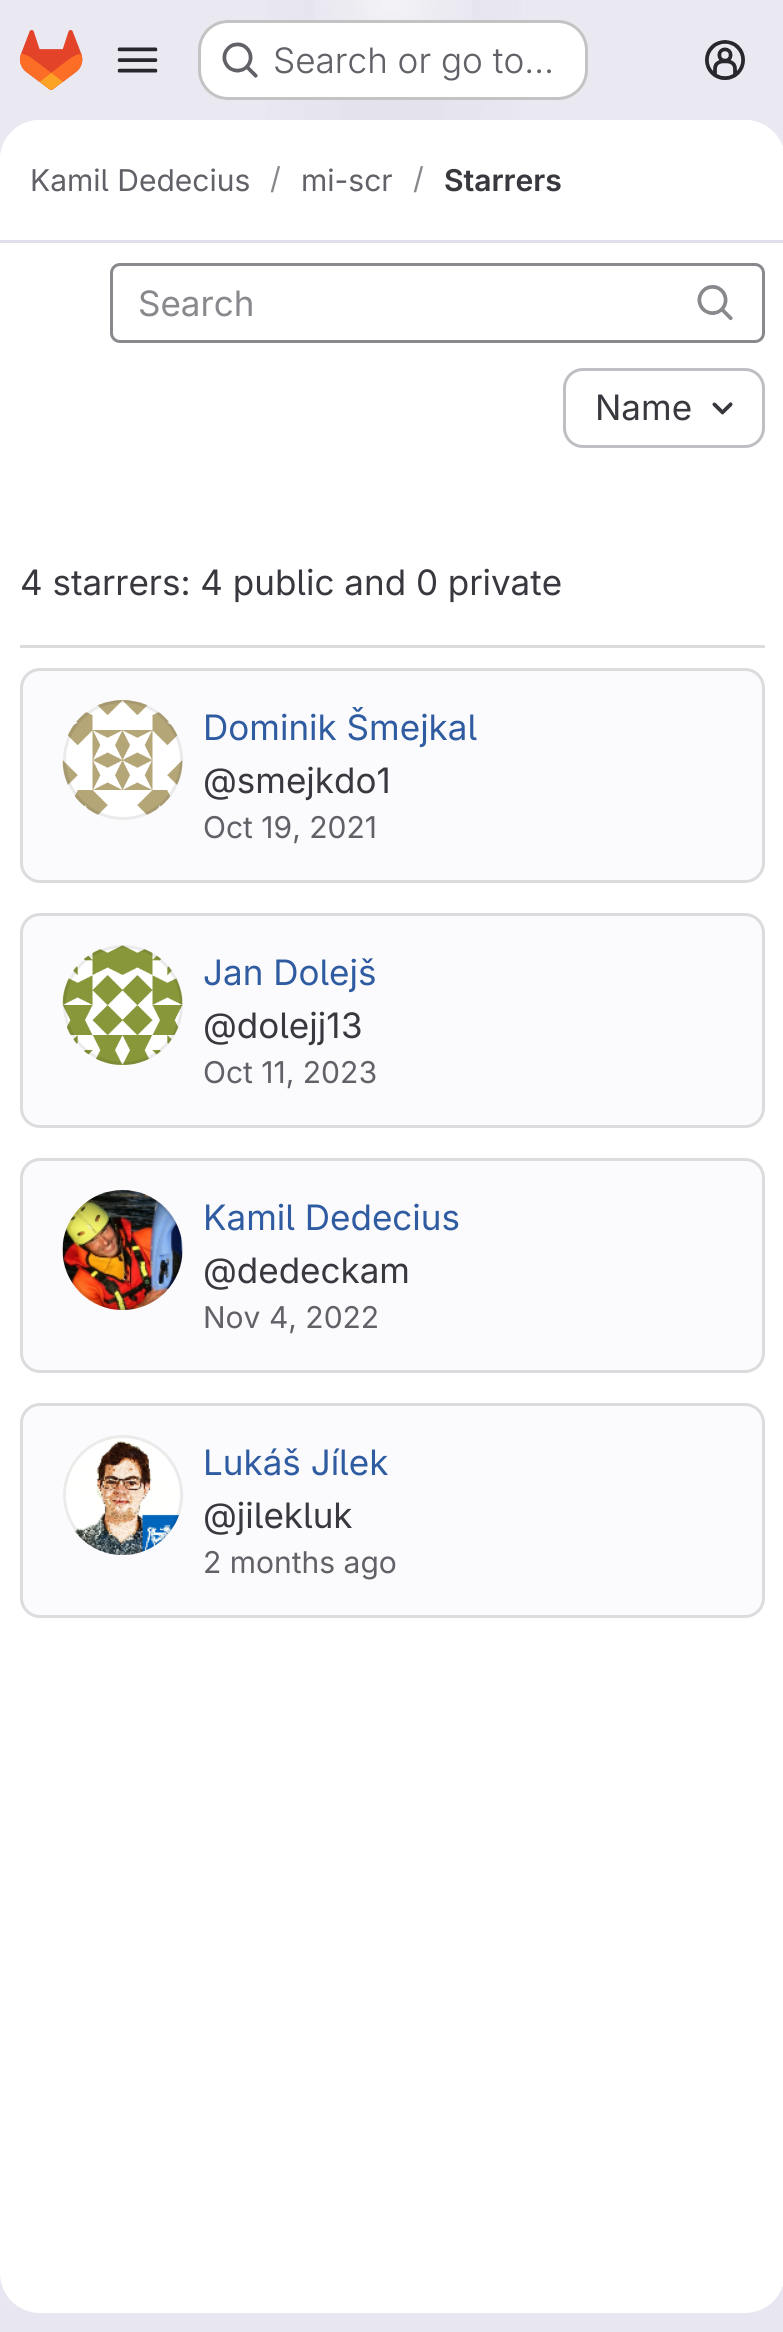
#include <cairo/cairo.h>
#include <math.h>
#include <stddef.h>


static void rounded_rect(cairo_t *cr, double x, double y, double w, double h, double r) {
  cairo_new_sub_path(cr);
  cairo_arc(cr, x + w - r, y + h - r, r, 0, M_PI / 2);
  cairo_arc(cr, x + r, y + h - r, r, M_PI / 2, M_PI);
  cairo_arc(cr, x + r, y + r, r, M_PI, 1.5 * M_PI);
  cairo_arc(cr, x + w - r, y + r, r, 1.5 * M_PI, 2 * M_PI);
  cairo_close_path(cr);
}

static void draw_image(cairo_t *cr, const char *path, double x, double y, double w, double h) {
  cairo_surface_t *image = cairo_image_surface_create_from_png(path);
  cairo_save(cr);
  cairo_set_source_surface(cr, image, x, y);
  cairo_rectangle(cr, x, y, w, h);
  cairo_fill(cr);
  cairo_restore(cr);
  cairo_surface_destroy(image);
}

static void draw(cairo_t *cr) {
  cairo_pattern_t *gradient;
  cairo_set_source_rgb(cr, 1, 1, 1);
  cairo_paint(cr);
  gradient = cairo_pattern_create_linear(604, 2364, 181, -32);
  cairo_pattern_add_color_stop_rgba(gradient, 0, 232 / 255.0, 230 / 255.0, 240 / 255.0, 1);
  cairo_pattern_add_color_stop_rgba(gradient, 0.7, 234 / 255.0, 233 / 255.0, 242 / 255.0, 1);
  cairo_set_source(cr, gradient);
  cairo_pattern_destroy(gradient);
  cairo_rectangle(cr, 0, 0, 783, 2332);
  cairo_fill(cr);
  gradient = cairo_pattern_create_radial(0, 0, 0, 0, 0, 1);
  cairo_pattern_set_matrix(gradient, &(cairo_matrix_t){1.0 / 393, 0, 0, 1.0 / 2333, -1.0 * 393 / 393, -1.0 * 0 / 2333});
  cairo_pattern_add_color_stop_rgba(gradient, 0, 228 / 255.0, 226 / 255.0, 237 / 255.0, 1);
  cairo_pattern_add_color_stop_rgba(gradient, 0.45, 228 / 255.0, 226 / 255.0, 237 / 255.0, 0);
  cairo_set_source(cr, gradient);
  cairo_pattern_destroy(gradient);
  cairo_rectangle(cr, 265, 0, 256, 120);
  cairo_fill(cr);
  gradient = cairo_pattern_create_radial(0, 0, 0, 0, 0, 1);
  cairo_pattern_set_matrix(gradient, &(cairo_matrix_t){1.0 / 393, 0, 0, 1.0 / 2333, -1.0 * 393 / 393, -1.0 * 0 / 2333});
  cairo_pattern_add_color_stop_rgba(gradient, 0, 228 / 255.0, 226 / 255.0, 236 / 255.0, 1);
  cairo_pattern_add_color_stop_rgba(gradient, 0.32, 228 / 255.0, 226 / 255.0, 236 / 255.0, 0);
  cairo_set_source(cr, gradient);
  cairo_pattern_destroy(gradient);
  cairo_rectangle(cr, 341, 0, 104, 120);
  cairo_fill(cr);
  gradient = cairo_pattern_create_radial(393, 0, 0, 393, 0, 2365);
  cairo_pattern_add_color_stop_rgba(gradient, 0, 1, 1, 1, 0.6);
  cairo_pattern_add_color_stop_rgba(gradient, 0.04, 1, 1, 1, 0);
  cairo_set_source(cr, gradient);
  cairo_pattern_destroy(gradient);
  cairo_rectangle(cr, 314, 0, 158, 80);
  cairo_fill(cr);
  draw_image(cr, "images/1.png", 20, 30, 63, 60);
  draw_image(cr, "images/2.png", 117, 47, 41, 26);
  cairo_set_source_rgb(cr, 1, 1, 1);
  rounded_rect(cr, 198, 20, 390, 80, 30);
  cairo_fill(cr);
  rounded_rect(cr, 199.5, 21.5, 387, 77, 28.5);
  cairo_set_source_rgba(cr, 5 / 255.0, 5 / 255.0, 6 / 255.0, 0.24);
  cairo_set_line_width(cr, 3);
  cairo_stroke(cr);
  draw_image(cr, "images/3.png", 222, 42, 36, 36);
  draw_image(cr, "images/4.png", 705, 40, 40, 40);
  cairo_set_source_rgb(cr, 1, 1, 1);
  rounded_rect(cr, 0, 120, 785, 2193, 40);
  cairo_fill(cr);
  cairo_new_path(cr);
  cairo_move_to(cr, 40, 120);
  cairo_line_to(cr, 745, 120);
  cairo_curve_to(cr, 767, 120, 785, 138, 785, 160);
  cairo_line_to(cr, 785, 243);
  cairo_line_to(cr, 0, 243);
  cairo_line_to(cr, 0, 160);
  cairo_curve_to(cr, 0, 138, 18, 120, 40, 120);
  cairo_close_path(cr);
  cairo_fill(cr);
  cairo_set_source_rgb(cr, 225 / 255.0, 223 / 255.0, 236 / 255.0);
  cairo_rectangle(cr, 0, 240, 783, 3);
  cairo_fill(cr);
  cairo_set_source_rgb(cr, 220 / 255.0, 220 / 255.0, 222 / 255.0);
  cairo_rectangle(cr, 20, 645, 745, 3);
  cairo_fill(cr);
  rounded_rect(cr, 111.5, 264.5, 652, 77, 8.5);
  cairo_set_source_rgb(cr, 137 / 255.0, 136 / 255.0, 141 / 255.0);
  cairo_stroke(cr);
  draw_image(cr, "images/5.png", 697, 285, 36, 36);
  rounded_rect(cr, 564.5, 369.5, 199, 77, 18.5);
  cairo_set_source_rgb(cr, 191 / 255.0, 191 / 255.0, 195 / 255.0);
  cairo_stroke(cr);
  draw_image(cr, "images/6.png", 712, 402, 21, 13);
  cairo_set_source_rgb(cr, 251 / 255.0, 250 / 255.0, 253 / 255.0);
  rounded_rect(cr, 21.5, 669.5, 742, 212, 18.5);
  cairo_fill_preserve(cr);
  cairo_set_source_rgb(cr, 220 / 255.0, 220 / 255.0, 222 / 255.0);
  cairo_stroke(cr);
  draw_image(cr, "images/7.png", 62, 700, 121, 120);
  cairo_arc(cr, 123, 760, 58.5, 0, 2 * M_PI);
  cairo_set_source_rgba(cr, 5 / 255.0, 5 / 255.0, 6 / 255.0, 0.08);
  cairo_stroke(cr);
  cairo_set_source_rgb(cr, 251 / 255.0, 250 / 255.0, 253 / 255.0);
  rounded_rect(cr, 21.5, 914.5, 742, 212, 18.5);
  cairo_fill_preserve(cr);
  cairo_set_source_rgb(cr, 220 / 255.0, 220 / 255.0, 222 / 255.0);
  cairo_stroke(cr);
  draw_image(cr, "images/8.png", 62, 945, 121, 120);
  cairo_arc(cr, 123, 1005, 58.5, 0, 2 * M_PI);
  cairo_set_source_rgba(cr, 5 / 255.0, 5 / 255.0, 6 / 255.0, 0.08);
  cairo_stroke(cr);
  cairo_set_source_rgb(cr, 251 / 255.0, 250 / 255.0, 253 / 255.0);
  rounded_rect(cr, 21.5, 1159.5, 742, 212, 18.5);
  cairo_fill_preserve(cr);
  cairo_set_source_rgb(cr, 220 / 255.0, 220 / 255.0, 222 / 255.0);
  cairo_stroke(cr);
  draw_image(cr, "images/9.png", 62, 1190, 121, 120);
  cairo_arc(cr, 123, 1250, 58.5, 0, 2 * M_PI);
  cairo_set_source_rgba(cr, 5 / 255.0, 5 / 255.0, 6 / 255.0, 0.08);
  cairo_stroke(cr);
  cairo_set_source_rgb(cr, 251 / 255.0, 250 / 255.0, 253 / 255.0);
  rounded_rect(cr, 21.5, 1404.5, 742, 212, 18.5);
  cairo_fill_preserve(cr);
  cairo_set_source_rgb(cr, 220 / 255.0, 220 / 255.0, 222 / 255.0);
  cairo_stroke(cr);
  draw_image(cr, "images/10.png", 63, 1435, 119, 120);
  cairo_arc(cr, 123, 1495, 58.5, 0, 2 * M_PI);
  cairo_set_source_rgba(cr, 5 / 255.0, 5 / 255.0, 6 / 255.0, 0.08);
  cairo_stroke(cr);
  cairo_select_font_face(cr, "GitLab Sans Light", CAIRO_FONT_SLANT_NORMAL, CAIRO_FONT_WEIGHT_NORMAL);
  cairo_set_font_size(cr, 35);
  cairo_set_source_rgb(cr, 98 / 255.0, 97 / 255.0, 104 / 255.0);
  cairo_move_to(cr, 273, 73);
  cairo_show_text(cr, "Search or go to…");
  cairo_select_font_face(cr, "GitLab Sans", CAIRO_FONT_SLANT_NORMAL, CAIRO_FONT_WEIGHT_NORMAL);
  cairo_set_font_size(cr, 30);
  cairo_move_to(cr, 30, 191);
  cairo_show_text(cr, "Kamil Dedecius");
  cairo_set_source_rgb(cr, 137 / 255.0, 136 / 255.0, 141 / 255.0);
  cairo_move_to(cr, 270, 189);
  cairo_show_text(cr, "/");
  cairo_set_source_rgb(cr, 98 / 255.0, 97 / 255.0, 104 / 255.0);
  cairo_move_to(cr, 301, 191);
  cairo_show_text(cr, "mi-scr");
  cairo_set_source_rgb(cr, 137 / 255.0, 136 / 255.0, 141 / 255.0);
  cairo_move_to(cr, 413, 189);
  cairo_show_text(cr, "/");
  cairo_select_font_face(cr, "GitLab Sans SemiBold", CAIRO_FONT_SLANT_NORMAL, CAIRO_FONT_WEIGHT_NORMAL);
  cairo_set_source_rgb(cr, 58 / 255.0, 56 / 255.0, 63 / 255.0);
  cairo_move_to(cr, 444, 191);
  cairo_show_text(cr, "Starrers");
  cairo_select_font_face(cr, "GitLab Sans", CAIRO_FONT_SLANT_NORMAL, CAIRO_FONT_WEIGHT_NORMAL);
  cairo_set_font_size(cr, 35);
  cairo_set_source_rgb(cr, 137 / 255.0, 136 / 255.0, 141 / 255.0);
  cairo_move_to(cr, 138, 316);
  cairo_show_text(cr, "Search");
  cairo_set_source_rgb(cr, 58 / 255.0, 56 / 255.0, 63 / 255.0);
  cairo_move_to(cr, 595, 420);
  cairo_show_text(cr, "Name");
  cairo_move_to(cr, 20, 595);
  cairo_show_text(cr, "4 starrers: 4 public and 0 private");
  cairo_set_source_rgb(cr, 47 / 255.0, 92 / 255.0, 160 / 255.0);
  cairo_move_to(cr, 203, 740);
  cairo_show_text(cr, "Dominik Šmejkal");
  cairo_set_source_rgb(cr, 58 / 255.0, 56 / 255.0, 63 / 255.0);
  cairo_move_to(cr, 203, 793);
  cairo_show_text(cr, "@smejkdo1");
  cairo_set_font_size(cr, 30);
  cairo_set_source_rgb(cr, 98 / 255.0, 97 / 255.0, 104 / 255.0);
  cairo_move_to(cr, 203, 838);
  cairo_show_text(cr, "Oct 19, 2021");
  cairo_set_font_size(cr, 35);
  cairo_set_source_rgb(cr, 47 / 255.0, 92 / 255.0, 160 / 255.0);
  cairo_move_to(cr, 203, 985);
  cairo_show_text(cr, "Jan Dolejš");
  cairo_set_source_rgb(cr, 58 / 255.0, 56 / 255.0, 63 / 255.0);
  cairo_move_to(cr, 203, 1038);
  cairo_show_text(cr, "@dolejj13");
  cairo_set_font_size(cr, 30);
  cairo_set_source_rgb(cr, 98 / 255.0, 97 / 255.0, 104 / 255.0);
  cairo_move_to(cr, 203, 1083);
  cairo_show_text(cr, "Oct 11, 2023");
  cairo_set_font_size(cr, 35);
  cairo_set_source_rgb(cr, 47 / 255.0, 92 / 255.0, 160 / 255.0);
  cairo_move_to(cr, 203, 1230);
  cairo_show_text(cr, "Kamil Dedecius");
  cairo_set_source_rgb(cr, 58 / 255.0, 56 / 255.0, 63 / 255.0);
  cairo_move_to(cr, 203, 1283);
  cairo_show_text(cr, "@dedeckam");
  cairo_set_font_size(cr, 30);
  cairo_set_source_rgb(cr, 98 / 255.0, 97 / 255.0, 104 / 255.0);
  cairo_move_to(cr, 203, 1328);
  cairo_show_text(cr, "Nov 4, 2022");
  cairo_set_font_size(cr, 35);
  cairo_set_source_rgb(cr, 47 / 255.0, 92 / 255.0, 160 / 255.0);
  cairo_move_to(cr, 203, 1475);
  cairo_show_text(cr, "Lukáš Jílek");
  cairo_set_source_rgb(cr, 58 / 255.0, 56 / 255.0, 63 / 255.0);
  cairo_move_to(cr, 203, 1528);
  cairo_show_text(cr, "@jilekluk");
  cairo_set_font_size(cr, 30);
  cairo_set_source_rgb(cr, 98 / 255.0, 97 / 255.0, 104 / 255.0);
  cairo_move_to(cr, 203, 1573);
  cairo_show_text(cr, "2 months ago");
}

int main(void) {
  cairo_surface_t *surface = cairo_image_surface_create(CAIRO_FORMAT_RGB24, 783, 2332);
  cairo_t *cr = cairo_create(surface);
  cairo_font_options_t *options = cairo_font_options_create();
  cairo_font_options_set_hint_metrics(options, CAIRO_HINT_METRICS_OFF);
  cairo_font_options_set_hint_style(options, CAIRO_HINT_STYLE_NONE);
  cairo_set_font_options(cr, options);
  cairo_set_miter_limit(cr, 4);
  draw(cr);
  cairo_surface_write_to_png(surface, "out.png");
  cairo_font_options_destroy(options);
  cairo_destroy(cr);
  cairo_surface_destroy(surface);
  return 0;
}
